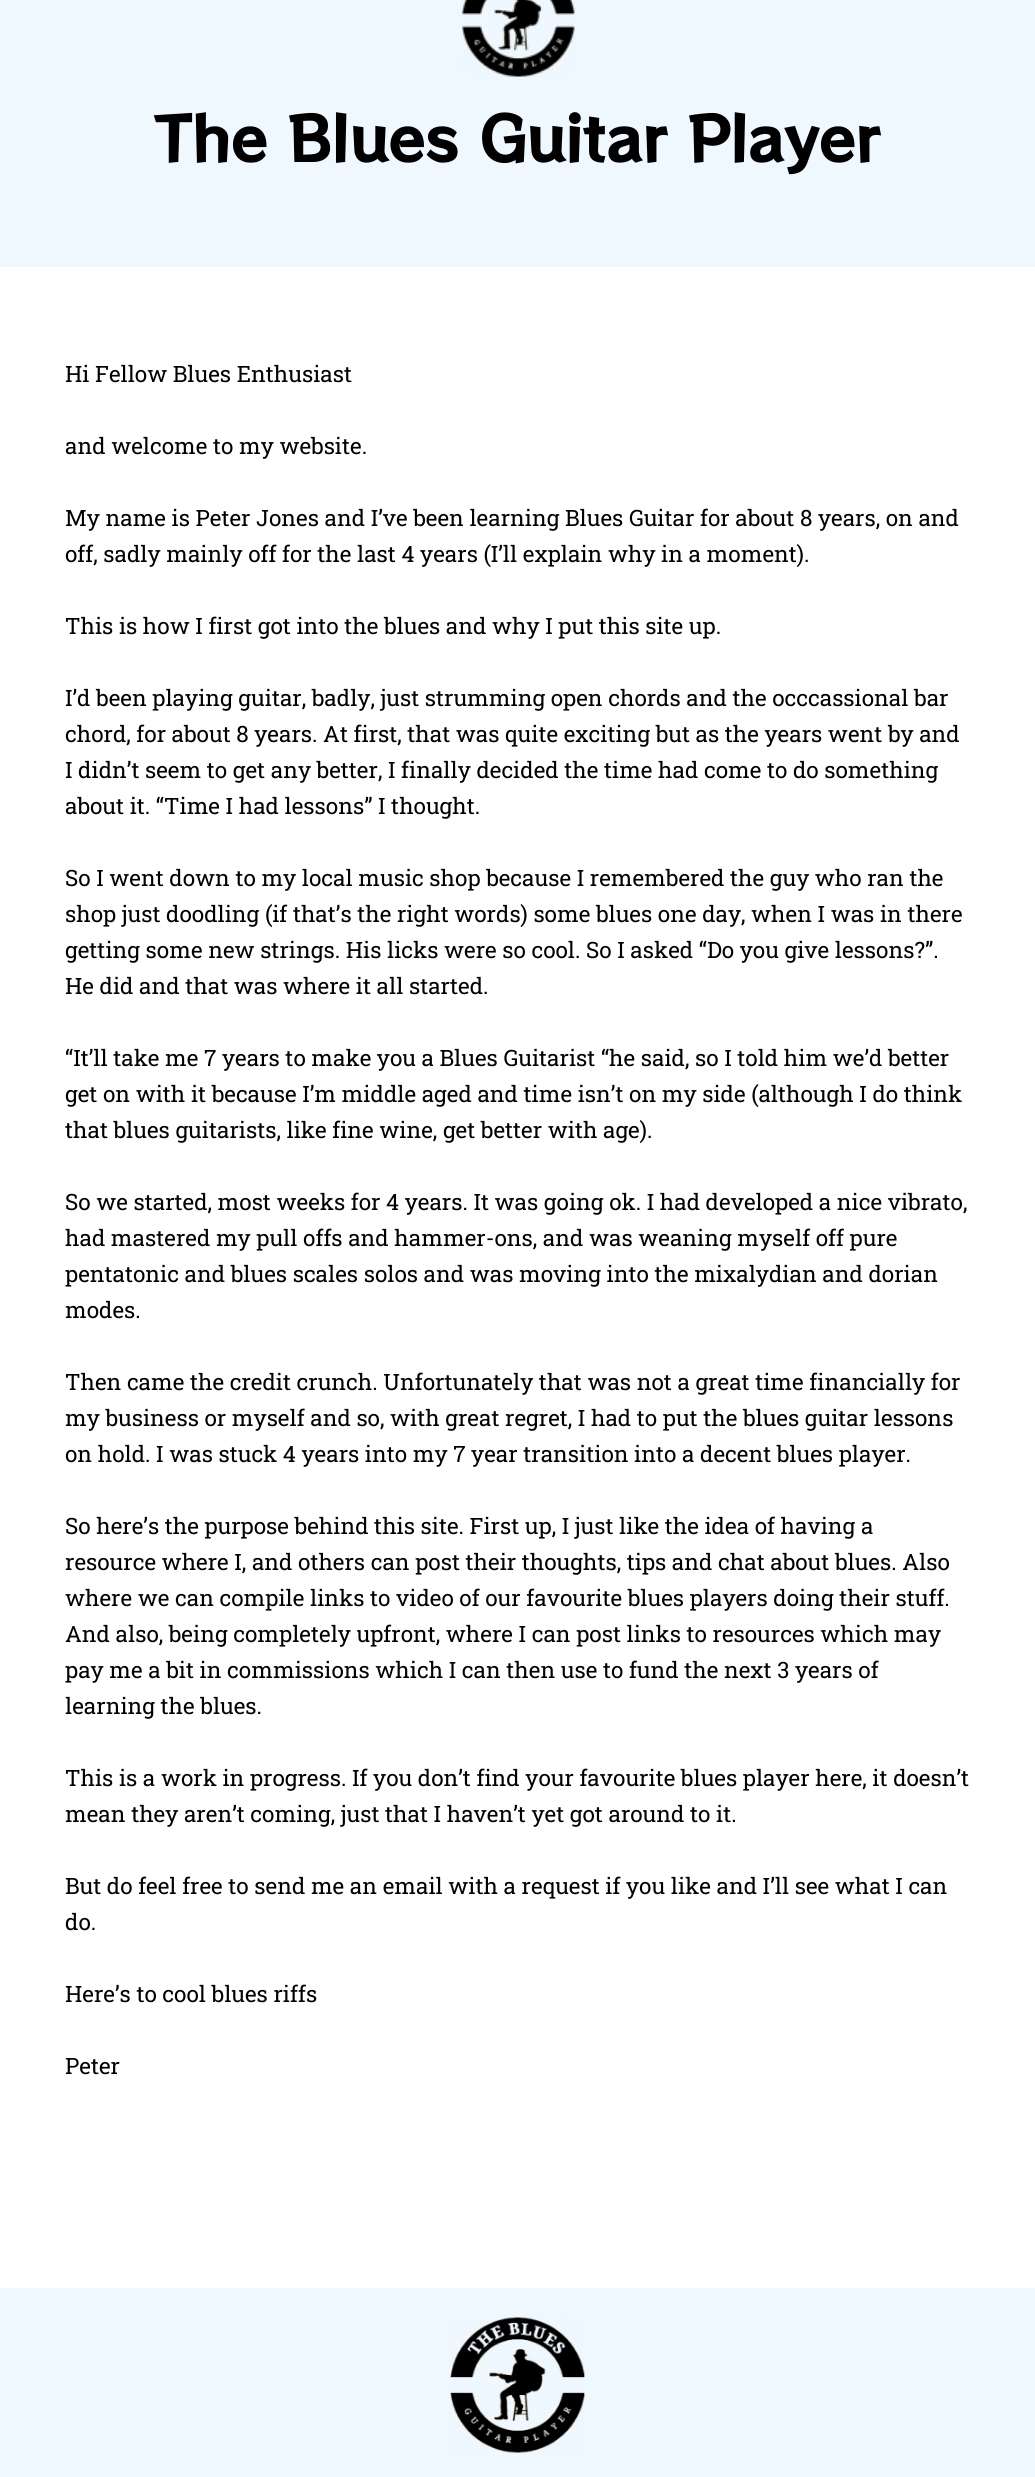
#include <cairo/cairo.h>
#include <math.h>
#include <stddef.h>


static void draw_image(cairo_t *cr, const char *path, double x, double y, double w, double h) {
  cairo_surface_t *image = cairo_image_surface_create_from_png(path);
  cairo_save(cr);
  cairo_set_source_surface(cr, image, x, y);
  cairo_rectangle(cr, x, y, w, h);
  cairo_fill(cr);
  cairo_restore(cr);
  cairo_surface_destroy(image);
}

static void draw(cairo_t *cr) {
  cairo_set_source_rgb(cr, 1, 1, 1);
  cairo_paint(cr);
  cairo_set_source_rgb(cr, 239 / 255.0, 247 / 255.0, 1);
  cairo_rectangle(cr, 0, 0, 1035, 267);
  cairo_fill(cr);
  draw_image(cr, "images/1.png", 462, 0, 113, 77);
  cairo_rectangle(cr, 0, 2288, 1035, 189);
  cairo_fill(cr);
  draw_image(cr, "images/2.png", 450, 2317, 135, 136);
  cairo_select_font_face(cr, "RocknRoll One", CAIRO_FONT_SLANT_NORMAL, CAIRO_FONT_WEIGHT_BOLD);
  cairo_set_font_size(cr, 60);
  cairo_set_source_rgb(cr, 0, 0, 0);
  cairo_move_to(cr, 154, 162);
  cairo_show_text(cr, "The Blues Guitar Player");
  cairo_select_font_face(cr, "Roboto Slab", CAIRO_FONT_SLANT_NORMAL, CAIRO_FONT_WEIGHT_NORMAL);
  cairo_set_font_size(cr, 22.5);
  cairo_move_to(cr, 65, 382);
  cairo_show_text(cr, "Hi Fellow Blues Enthusiast");
  cairo_move_to(cr, 65, 454);
  cairo_show_text(cr, "and welcome to my website.");
  cairo_move_to(cr, 65, 526);
  cairo_show_text(cr, "My name is Peter Jones and I’ve been learning Blues Guitar for about 8 years, on and");
  cairo_move_to(cr, 65, 562);
  cairo_show_text(cr, "off, sadly mainly off for the last 4 years (I’ll explain why in a moment).");
  cairo_move_to(cr, 65, 634);
  cairo_show_text(cr, "This is how I first got into the blues and why I put this site up.");
  cairo_move_to(cr, 65, 706);
  cairo_show_text(cr, "I’d been playing guitar, badly, just strumming open chords and the occcassional bar");
  cairo_move_to(cr, 65, 742);
  cairo_show_text(cr, "chord, for about 8 years. At first, that was quite exciting but as the years went by and");
  cairo_move_to(cr, 65, 778);
  cairo_show_text(cr, "I didn’t seem to get any better, I finally decided the time had come to do something");
  cairo_move_to(cr, 65, 814);
  cairo_show_text(cr, "about it. “Time I had lessons” I thought.");
  cairo_move_to(cr, 65, 886);
  cairo_show_text(cr, "So I went down to my local music shop because I remembered the guy who ran the");
  cairo_move_to(cr, 65, 922);
  cairo_show_text(cr, "shop just doodling (if that’s the right words) some blues one day, when I was in there");
  cairo_move_to(cr, 65, 958);
  cairo_show_text(cr, "getting some new strings. His licks were so cool. So I asked “Do you give lessons?”.");
  cairo_move_to(cr, 65, 994);
  cairo_show_text(cr, "He did and that was where it all started.");
  cairo_move_to(cr, 65, 1066);
  cairo_show_text(cr, "“It’ll take me 7 years to make you a Blues Guitarist “he said, so I told him we’d better");
  cairo_move_to(cr, 65, 1102);
  cairo_show_text(cr, "get on with it because I’m middle aged and time isn’t on my side (although I do think");
  cairo_move_to(cr, 65, 1138);
  cairo_show_text(cr, "that blues guitarists, like fine wine, get better with age).");
  cairo_move_to(cr, 65, 1210);
  cairo_show_text(cr, "So we started, most weeks for 4 years. It was going ok. I had developed a nice vibrato,");
  cairo_move_to(cr, 65, 1246);
  cairo_show_text(cr, "had mastered my pull offs and hammer-ons, and was weaning myself off pure");
  cairo_move_to(cr, 65, 1282);
  cairo_show_text(cr, "pentatonic and blues scales solos and was moving into the mixalydian and dorian");
  cairo_move_to(cr, 65, 1318);
  cairo_show_text(cr, "modes.");
  cairo_move_to(cr, 65, 1390);
  cairo_show_text(cr, "Then came the credit crunch. Unfortunately that was not a great time financially for");
  cairo_move_to(cr, 65, 1426);
  cairo_show_text(cr, "my business or myself and so, with great regret, I had to put the blues guitar lessons");
  cairo_move_to(cr, 65, 1462);
  cairo_show_text(cr, "on hold. I was stuck 4 years into my 7 year transition into a decent blues player.");
  cairo_move_to(cr, 65, 1534);
  cairo_show_text(cr, "So here’s the purpose behind this site. First up, I just like the idea of having a");
  cairo_move_to(cr, 65, 1570);
  cairo_show_text(cr, "resource where I, and others can post their thoughts, tips and chat about blues. Also");
  cairo_move_to(cr, 65, 1606);
  cairo_show_text(cr, "where we can compile links to video of our favourite blues players doing their stuff.");
  cairo_move_to(cr, 65, 1642);
  cairo_show_text(cr, "And also, being completely upfront, where I can post links to resources which may");
  cairo_move_to(cr, 65, 1678);
  cairo_show_text(cr, "pay me a bit in commissions which I can then use to fund the next 3 years of");
  cairo_move_to(cr, 65, 1714);
  cairo_show_text(cr, "learning the blues.");
  cairo_move_to(cr, 65, 1786);
  cairo_show_text(cr, "This is a work in progress. If you don’t find your favourite blues player here, it doesn’t");
  cairo_move_to(cr, 65, 1822);
  cairo_show_text(cr, "mean they aren’t coming, just that I haven’t yet got around to it.");
  cairo_move_to(cr, 65, 1894);
  cairo_show_text(cr, "But do feel free to send me an email with a request if you like and I’ll see what I can");
  cairo_move_to(cr, 65, 1930);
  cairo_show_text(cr, "do.");
  cairo_move_to(cr, 65, 2002);
  cairo_show_text(cr, "Here’s to cool blues riffs");
  cairo_move_to(cr, 65, 2074);
  cairo_show_text(cr, "Peter");
}

int main(void) {
  cairo_surface_t *surface = cairo_image_surface_create(CAIRO_FORMAT_RGB24, 1035, 2477);
  cairo_t *cr = cairo_create(surface);
  cairo_font_options_t *options = cairo_font_options_create();
  cairo_font_options_set_hint_metrics(options, CAIRO_HINT_METRICS_OFF);
  cairo_font_options_set_hint_style(options, CAIRO_HINT_STYLE_NONE);
  cairo_set_font_options(cr, options);
  cairo_set_miter_limit(cr, 4);
  draw(cr);
  cairo_surface_write_to_png(surface, "out.png");
  cairo_font_options_destroy(options);
  cairo_destroy(cr);
  cairo_surface_destroy(surface);
  return 0;
}
